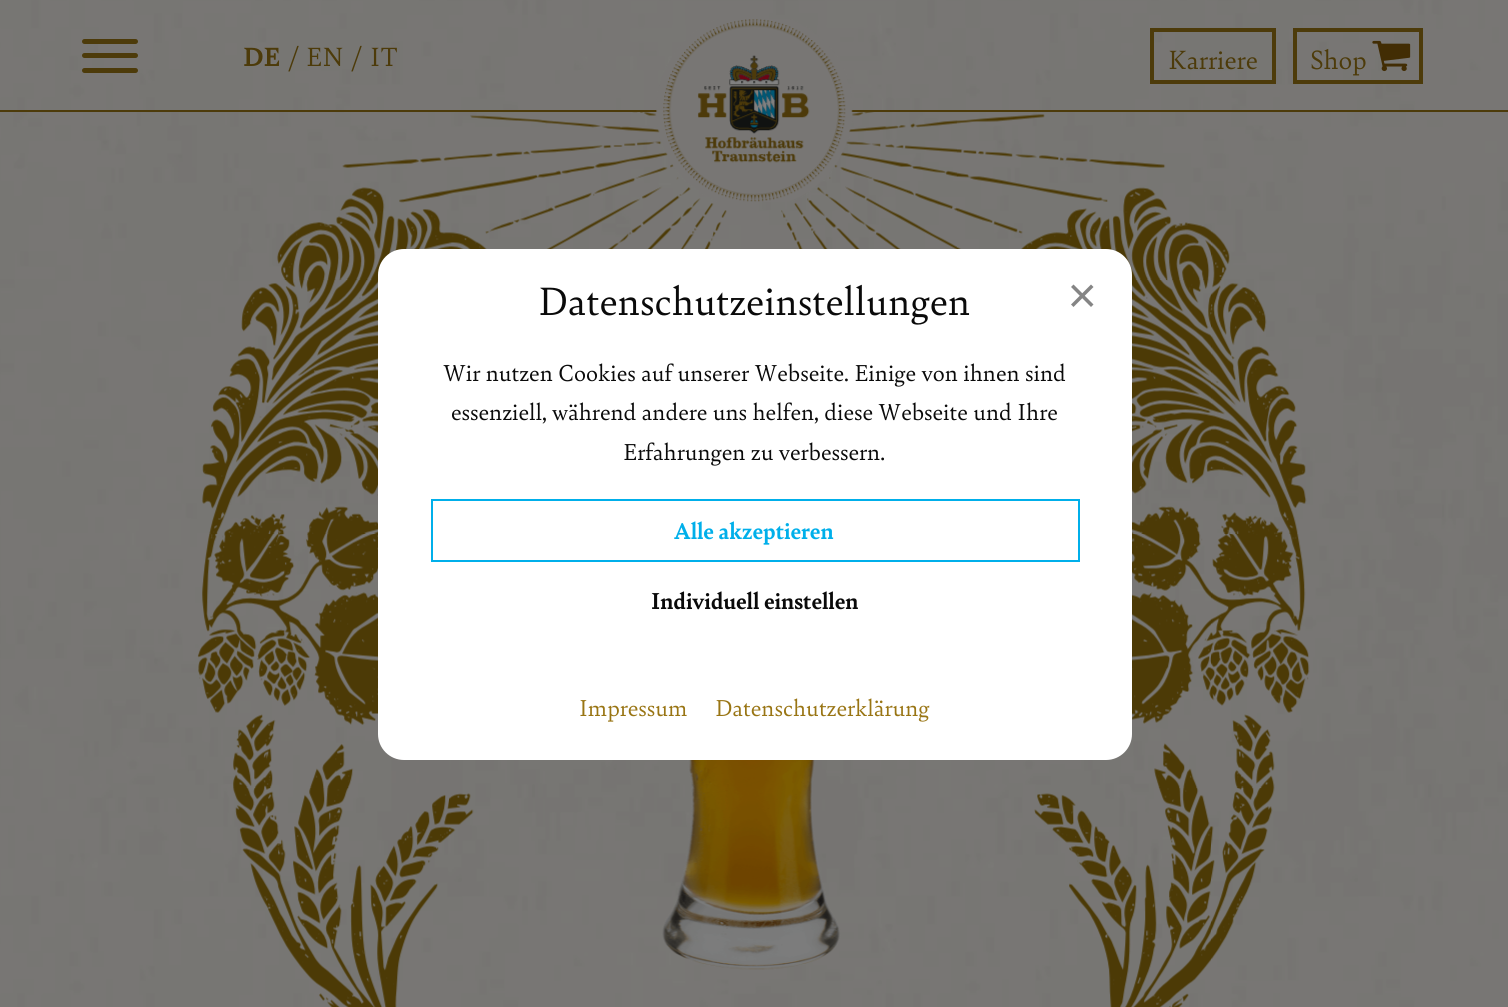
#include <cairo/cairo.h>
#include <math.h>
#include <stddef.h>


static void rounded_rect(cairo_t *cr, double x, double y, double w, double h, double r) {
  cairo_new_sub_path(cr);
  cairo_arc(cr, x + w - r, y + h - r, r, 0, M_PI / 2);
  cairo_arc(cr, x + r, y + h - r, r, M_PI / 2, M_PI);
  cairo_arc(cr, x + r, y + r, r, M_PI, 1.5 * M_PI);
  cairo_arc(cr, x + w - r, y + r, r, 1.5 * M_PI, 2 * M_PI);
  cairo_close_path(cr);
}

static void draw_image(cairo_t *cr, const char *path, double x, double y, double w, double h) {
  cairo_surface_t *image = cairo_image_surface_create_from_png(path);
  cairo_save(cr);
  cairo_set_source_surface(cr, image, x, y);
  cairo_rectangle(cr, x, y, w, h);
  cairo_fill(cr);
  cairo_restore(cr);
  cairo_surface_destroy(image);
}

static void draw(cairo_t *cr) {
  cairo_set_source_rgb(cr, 1, 1, 1);
  cairo_paint(cr);
  draw_image(cr, "images/1.png", 0, 0, 1508, 1007);
  draw_image(cr, "images/2.png", 512, 25, 484, 85);
  cairo_set_source_rgb(cr, 77 / 255.0, 59 / 255.0, 10 / 255.0);
  cairo_rectangle(cr, 0, 110, 1508, 2);
  cairo_fill(cr);
  rounded_rect(cr, 82, 53, 56, 5, 2.5);
  cairo_fill(cr);
  rounded_rect(cr, 82, 39, 56, 5, 2.5);
  cairo_fill(cr);
  rounded_rect(cr, 82, 68, 56, 5, 2.5);
  cairo_fill(cr);
  draw_image(cr, "images/5.png", 197, 112, 1113, 895);
  draw_image(cr, "images/3.png", 656, 19, 197, 183);
  cairo_rectangle(cr, 1152, 30, 122, 52);
  cairo_set_line_width(cr, 4);
  cairo_stroke(cr);
  cairo_rectangle(cr, 1295, 30, 126, 52);
  cairo_stroke(cr);
  draw_image(cr, "images/4.png", 1372, 40, 39, 32);
  draw_image(cr, "images/6.png", 661, 760, 180, 210);
  cairo_set_source_rgb(cr, 1, 1, 1);
  rounded_rect(cr, 378, 249, 754, 511, 26);
  cairo_fill(cr);
  cairo_set_source_rgb(cr, 133 / 255.0, 133 / 255.0, 133 / 255.0);
  cairo_new_path(cr);
  cairo_move_to(cr, 1073.5, 284.5);
  cairo_line_to(cr, 1093.5, 304.5);
  cairo_line_to(cr, 1091, 307);
  cairo_line_to(cr, 1071, 287);
  cairo_close_path(cr);
  cairo_fill(cr);
  cairo_new_path(cr);
  cairo_move_to(cr, 1071, 304.5);
  cairo_line_to(cr, 1091, 284.5);
  cairo_line_to(cr, 1093.5, 287);
  cairo_line_to(cr, 1073.5, 307);
  cairo_close_path(cr);
  cairo_fill(cr);
  cairo_rectangle(cr, 432, 500, 647, 61);
  cairo_set_source_rgb(cr, 0, 175 / 255.0, 234 / 255.0);
  cairo_set_line_width(cr, 2);
  cairo_stroke(cr);
  cairo_select_font_face(cr, "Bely", CAIRO_FONT_SLANT_NORMAL, CAIRO_FONT_WEIGHT_BOLD);
  cairo_set_font_size(cr, 28);
  cairo_set_source_rgb(cr, 77 / 255.0, 59 / 255.0, 10 / 255.0);
  cairo_move_to(cr, 243, 66);
  cairo_show_text(cr, "DE");
  cairo_select_font_face(cr, "Bely", CAIRO_FONT_SLANT_NORMAL, CAIRO_FONT_WEIGHT_NORMAL);
  cairo_move_to(cr, 288, 66);
  cairo_show_text(cr, "/");
  cairo_move_to(cr, 306, 66);
  cairo_show_text(cr, "EN");
  cairo_move_to(cr, 351, 66);
  cairo_show_text(cr, "/");
  cairo_move_to(cr, 370, 66);
  cairo_show_text(cr, "IT");
  cairo_move_to(cr, 1168, 69);
  cairo_show_text(cr, "Karriere");
  cairo_move_to(cr, 1310, 69);
  cairo_show_text(cr, "Shop");
  cairo_set_font_size(cr, 42);
  cairo_set_source_rgb(cr, 10 / 255.0, 10 / 255.0, 10 / 255.0);
  cairo_move_to(cr, 538, 315);
  cairo_show_text(cr, "Datenschutzeinstellungen");
  cairo_set_font_size(cr, 24.5);
  cairo_move_to(cr, 443, 381);
  cairo_show_text(cr, "Wir nutzen Cookies auf unserer Webseite. Einige von ihnen sind");
  cairo_move_to(cr, 451, 420);
  cairo_show_text(cr, "essenziell, während andere uns helfen, diese Webseite und Ihre");
  cairo_move_to(cr, 623, 460);
  cairo_show_text(cr, "Erfahrungen zu verbessern.");
  cairo_select_font_face(cr, "Bely", CAIRO_FONT_SLANT_NORMAL, CAIRO_FONT_WEIGHT_BOLD);
  cairo_set_source_rgb(cr, 0, 175 / 255.0, 234 / 255.0);
  cairo_move_to(cr, 674, 539);
  cairo_show_text(cr, "Alle akzeptieren");
  cairo_set_source_rgb(cr, 10 / 255.0, 10 / 255.0, 10 / 255.0);
  cairo_move_to(cr, 651, 609);
  cairo_show_text(cr, "Individuell einstellen");
  cairo_select_font_face(cr, "Bely", CAIRO_FONT_SLANT_NORMAL, CAIRO_FONT_WEIGHT_NORMAL);
  cairo_set_source_rgb(cr, 153 / 255.0, 117 / 255.0, 20 / 255.0);
  cairo_move_to(cr, 579, 716);
  cairo_show_text(cr, "Impressum");
  cairo_move_to(cr, 715, 716);
  cairo_show_text(cr, "Datenschutzerklärung");
}

int main(void) {
  cairo_surface_t *surface = cairo_image_surface_create(CAIRO_FORMAT_RGB24, 1508, 1007);
  cairo_t *cr = cairo_create(surface);
  cairo_font_options_t *options = cairo_font_options_create();
  cairo_font_options_set_hint_metrics(options, CAIRO_HINT_METRICS_OFF);
  cairo_font_options_set_hint_style(options, CAIRO_HINT_STYLE_NONE);
  cairo_set_font_options(cr, options);
  cairo_set_miter_limit(cr, 4);
  draw(cr);
  cairo_surface_write_to_png(surface, "out.png");
  cairo_font_options_destroy(options);
  cairo_destroy(cr);
  cairo_surface_destroy(surface);
  return 0;
}
